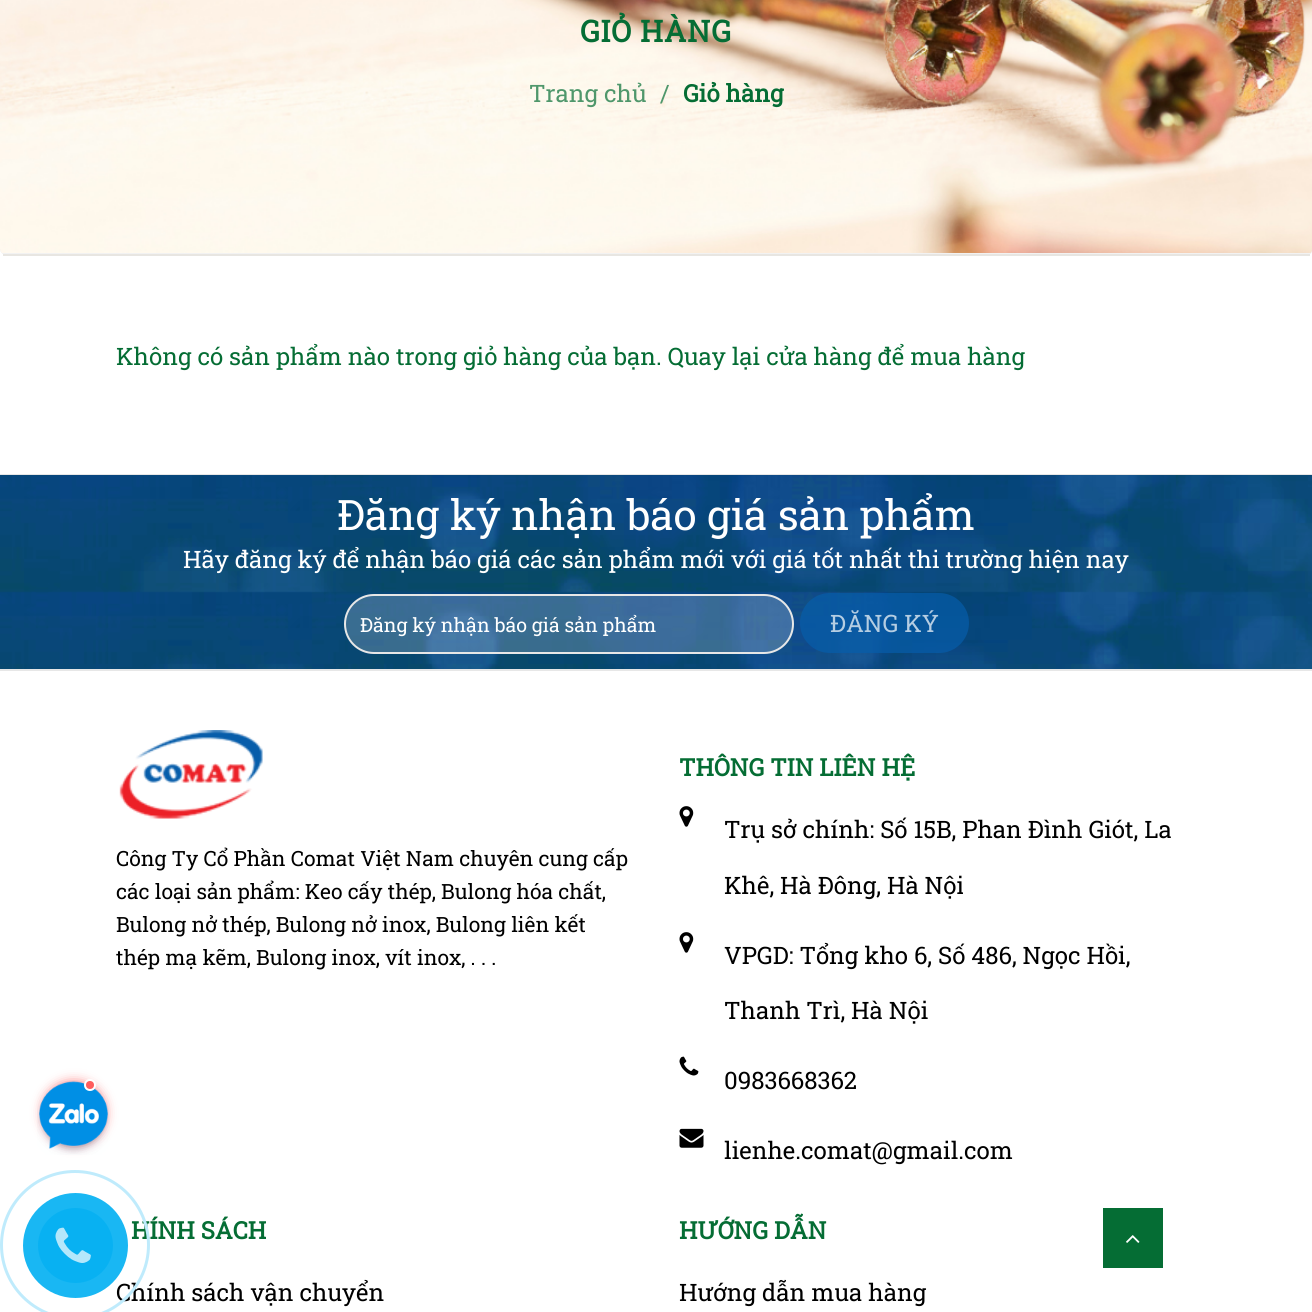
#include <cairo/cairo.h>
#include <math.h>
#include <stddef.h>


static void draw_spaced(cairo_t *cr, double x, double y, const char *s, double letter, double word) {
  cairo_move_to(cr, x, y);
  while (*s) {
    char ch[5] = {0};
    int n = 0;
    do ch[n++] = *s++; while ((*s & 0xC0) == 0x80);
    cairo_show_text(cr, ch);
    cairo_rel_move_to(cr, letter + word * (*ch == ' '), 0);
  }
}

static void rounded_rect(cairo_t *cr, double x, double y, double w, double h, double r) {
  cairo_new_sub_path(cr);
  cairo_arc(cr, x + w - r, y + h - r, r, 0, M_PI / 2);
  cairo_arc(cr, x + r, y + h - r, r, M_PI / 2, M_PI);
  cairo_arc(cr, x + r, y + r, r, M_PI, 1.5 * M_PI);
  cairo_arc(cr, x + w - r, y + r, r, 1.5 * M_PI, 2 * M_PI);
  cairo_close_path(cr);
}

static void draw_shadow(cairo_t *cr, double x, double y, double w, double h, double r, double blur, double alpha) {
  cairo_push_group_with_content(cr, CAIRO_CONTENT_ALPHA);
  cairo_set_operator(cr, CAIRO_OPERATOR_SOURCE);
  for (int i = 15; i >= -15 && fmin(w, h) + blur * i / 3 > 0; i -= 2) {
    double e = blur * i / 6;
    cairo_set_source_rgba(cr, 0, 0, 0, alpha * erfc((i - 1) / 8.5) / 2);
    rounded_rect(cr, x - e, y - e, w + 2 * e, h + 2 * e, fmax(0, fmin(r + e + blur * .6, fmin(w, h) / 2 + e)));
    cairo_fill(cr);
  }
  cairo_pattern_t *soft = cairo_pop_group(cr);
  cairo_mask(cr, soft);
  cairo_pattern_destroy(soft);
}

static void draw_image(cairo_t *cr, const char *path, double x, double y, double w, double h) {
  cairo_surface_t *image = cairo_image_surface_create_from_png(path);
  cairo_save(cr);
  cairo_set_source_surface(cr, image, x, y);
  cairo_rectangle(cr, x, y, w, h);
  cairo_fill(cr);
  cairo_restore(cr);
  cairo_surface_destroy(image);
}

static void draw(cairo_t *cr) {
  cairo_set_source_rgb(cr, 1, 1, 1);
  cairo_paint(cr);
  cairo_set_source_rgb(cr, 242 / 255.0, 242 / 255.0, 242 / 255.0);
  rounded_rect(cr, 0, -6, 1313, 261, 6);
  cairo_fill(cr);
  draw_image(cr, "images/1.png", 0, 0, 1312, 253);
  cairo_set_source_rgb(cr, 232 / 255.0, 230 / 255.0, 226 / 255.0);
  cairo_rectangle(cr, 3, 254, 1307, 2);
  cairo_fill(cr);
  cairo_set_source_rgb(cr, 1, 93 / 255.0, 93 / 255.0);
  draw_shadow(cr, 44, 1083, 60, 60, 30, 6, 1);
  draw_image(cr, "images/2.png", 37, 1081, 73, 74);
  cairo_set_source_rgb(cr, 1, 93 / 255.0, 93 / 255.0);
  cairo_arc(cr, 90, 1085, 5, 0, 2 * M_PI);
  cairo_fill_preserve(cr);
  cairo_set_source_rgb(cr, 1, 1, 1);
  cairo_stroke(cr);
  cairo_set_source_rgb(cr, 231 / 255.0, 231 / 255.0, 231 / 255.0);
  cairo_rectangle(cr, 0, 474, 1312, 1);
  cairo_fill(cr);
  draw_image(cr, "images/3.png", 0, 475, 1312, 194);
  cairo_rectangle(cr, 0, 669, 1312, 2);
  cairo_fill(cr);
  cairo_set_source_rgba(cr, 1, 1, 1, 0.2);
  rounded_rect(cr, 345, 595, 448, 58, 29);
  cairo_fill_preserve(cr);
  cairo_set_source_rgb(cr, 231 / 255.0, 231 / 255.0, 231 / 255.0);
  cairo_stroke(cr);
  cairo_set_source_rgba(cr, 7 / 255.0, 93 / 255.0, 170 / 255.0, 0.7);
  rounded_rect(cr, 800, 593, 169, 60, 30);
  cairo_fill(cr);
  draw_image(cr, "images/4.png", 119, 730, 144, 89);
  draw_image(cr, "images/5.png", 679, 806, 15, 21);
  draw_image(cr, "images/5.png", 679, 932, 15, 21);
  draw_image(cr, "images/6.png", 679, 1056, 20, 20);
  draw_image(cr, "images/7.png", 679, 1128, 25, 20);
  cairo_set_source_rgb(cr, 5 / 255.0, 109 / 255.0, 52 / 255.0);
  cairo_rectangle(cr, 1103, 1208, 60, 60);
  cairo_fill(cr);
  draw_image(cr, "images/9.png", 1126, 1235, 14, 8);
  cairo_select_font_face(cr, "Roboto Slab", CAIRO_FONT_SLANT_NORMAL, CAIRO_FONT_WEIGHT_BOLD);
  cairo_set_font_size(cr, 30);
  draw_spaced(cr, 580, 42, "GIỎ HÀNG", 0.75, 0);
  cairo_select_font_face(cr, "Roboto Slab", CAIRO_FONT_SLANT_NORMAL, CAIRO_FONT_WEIGHT_NORMAL);
  cairo_set_font_size(cr, 24);
  cairo_set_source_rgb(cr, 79 / 255.0, 151 / 255.0, 107 / 255.0);
  cairo_move_to(cr, 529, 102);
  cairo_show_text(cr, "Trang chủ");
  cairo_move_to(cr, 660, 102);
  cairo_show_text(cr, "/");
  cairo_select_font_face(cr, "Roboto Slab", CAIRO_FONT_SLANT_NORMAL, CAIRO_FONT_WEIGHT_BOLD);
  cairo_set_source_rgb(cr, 5 / 255.0, 109 / 255.0, 52 / 255.0);
  cairo_move_to(cr, 683, 102);
  cairo_show_text(cr, "Giỏ hàng");
  cairo_select_font_face(cr, "Roboto Slab", CAIRO_FONT_SLANT_NORMAL, CAIRO_FONT_WEIGHT_NORMAL);
  cairo_move_to(cr, 116, 365);
  cairo_show_text(cr, "Không có sản phẩm nào trong giỏ hàng của bạn. Quay lại cửa hàng để mua hàng");
  cairo_set_font_size(cr, 42);
  cairo_set_source_rgb(cr, 1, 1, 1);
  cairo_move_to(cr, 337, 530);
  cairo_show_text(cr, "Đăng ký nhận báo giá sản phẩm");
  cairo_set_font_size(cr, 24);
  cairo_move_to(cr, 183, 568);
  cairo_show_text(cr, "Hãy đăng ký để nhận báo giá các sản phẩm mới với giá tốt nhất thi trường hiện nay");
  cairo_set_font_size(cr, 19.5);
  cairo_move_to(cr, 360, 632);
  cairo_show_text(cr, "Đăng ký nhận báo giá sản phẩm");
  cairo_set_font_size(cr, 24);
  cairo_set_source_rgb(cr, 181 / 255.0, 205 / 255.0, 226 / 255.0);
  cairo_move_to(cr, 830, 632);
  cairo_show_text(cr, "ĐĂNG KÝ");
  cairo_set_font_size(cr, 21);
  cairo_set_source_rgb(cr, 0, 0, 0);
  cairo_move_to(cr, 116, 866);
  cairo_show_text(cr, "Công Ty Cổ Phần Comat Việt Nam chuyên cung cấp");
  cairo_move_to(cr, 116, 899);
  cairo_show_text(cr, "các loại sản phẩm: Keo cấy thép, Bulong hóa chất,");
  cairo_move_to(cr, 116, 932);
  cairo_show_text(cr, "Bulong nở thép, Bulong nở inox, Bulong liên kết");
  cairo_move_to(cr, 116, 965);
  cairo_show_text(cr, "thép mạ kẽm, Bulong inox, vít inox, . . .");
  cairo_select_font_face(cr, "Roboto Slab", CAIRO_FONT_SLANT_NORMAL, CAIRO_FONT_WEIGHT_BOLD);
  cairo_set_font_size(cr, 24);
  cairo_set_source_rgb(cr, 5 / 255.0, 109 / 255.0, 52 / 255.0);
  cairo_move_to(cr, 679, 776);
  cairo_show_text(cr, "THÔNG TIN LIÊN HỆ");
  cairo_select_font_face(cr, "Roboto Slab", CAIRO_FONT_SLANT_NORMAL, CAIRO_FONT_WEIGHT_NORMAL);
  cairo_set_source_rgb(cr, 0, 0, 0);
  cairo_move_to(cr, 724, 838);
  cairo_show_text(cr, "Trụ sở chính: Số 15B, Phan Đình Giót, La");
  cairo_move_to(cr, 724, 894);
  cairo_show_text(cr, "Khê, Hà Đông, Hà Nội");
  cairo_move_to(cr, 724, 964);
  cairo_show_text(cr, "VPGD: Tổng kho 6, Số 486, Ngọc Hồi,");
  cairo_move_to(cr, 724, 1019);
  cairo_show_text(cr, "Thanh Trì, Hà Nội");
  cairo_move_to(cr, 724, 1089);
  cairo_show_text(cr, "0983668362");
  cairo_move_to(cr, 724, 1159);
  cairo_show_text(cr, "lienhe.comat@gmail.com");
  cairo_select_font_face(cr, "Roboto Slab", CAIRO_FONT_SLANT_NORMAL, CAIRO_FONT_WEIGHT_BOLD);
  cairo_set_source_rgb(cr, 5 / 255.0, 109 / 255.0, 52 / 255.0);
  cairo_move_to(cr, 131, 1239);
  cairo_show_text(cr, "HÍNH SÁCH");
  cairo_select_font_face(cr, "Roboto Slab", CAIRO_FONT_SLANT_NORMAL, CAIRO_FONT_WEIGHT_NORMAL);
  cairo_set_source_rgb(cr, 0, 0, 0);
  cairo_move_to(cr, 116, 1301);
  cairo_show_text(cr, "Chính sách vận chuyển");
  cairo_select_font_face(cr, "Roboto Slab", CAIRO_FONT_SLANT_NORMAL, CAIRO_FONT_WEIGHT_BOLD);
  cairo_set_source_rgb(cr, 5 / 255.0, 109 / 255.0, 52 / 255.0);
  cairo_move_to(cr, 679, 1239);
  cairo_show_text(cr, "HƯỚNG DẪN");
  cairo_select_font_face(cr, "Roboto Slab", CAIRO_FONT_SLANT_NORMAL, CAIRO_FONT_WEIGHT_NORMAL);
  cairo_set_source_rgb(cr, 0, 0, 0);
  cairo_move_to(cr, 679, 1301);
  cairo_show_text(cr, "Hướng dẫn mua hàng");
  cairo_new_path(cr);
  cairo_arc(cr, 75, 1245, 73.5, 0, 2 * M_PI);
  cairo_set_source_rgb(cr, 191 / 255.0, 235 / 255.0, 252 / 255.0);
  cairo_set_line_width(cr, 3);
  cairo_stroke(cr);
  cairo_set_source_rgba(cr, 0, 175 / 255.0, 242 / 255.0, 0.9);
  cairo_arc(cr, 75.5, 1245.5, 52.5, 0, 2 * M_PI);
  cairo_fill(cr);
  cairo_set_source_rgb(cr, 8 / 255.0, 177 / 255.0, 242 / 255.0);
  cairo_arc(cr, 75.5, 1245.5, 37.5, 0, 2 * M_PI);
  cairo_fill(cr);
  draw_image(cr, "images/8.png", 55, 1227, 36, 36);
}

int main(void) {
  cairo_surface_t *surface = cairo_image_surface_create(CAIRO_FORMAT_RGB24, 1312, 1312);
  cairo_t *cr = cairo_create(surface);
  cairo_font_options_t *options = cairo_font_options_create();
  cairo_font_options_set_hint_metrics(options, CAIRO_HINT_METRICS_OFF);
  cairo_font_options_set_hint_style(options, CAIRO_HINT_STYLE_NONE);
  cairo_set_font_options(cr, options);
  cairo_set_miter_limit(cr, 4);
  draw(cr);
  cairo_surface_write_to_png(surface, "out.png");
  cairo_font_options_destroy(options);
  cairo_destroy(cr);
  cairo_surface_destroy(surface);
  return 0;
}
